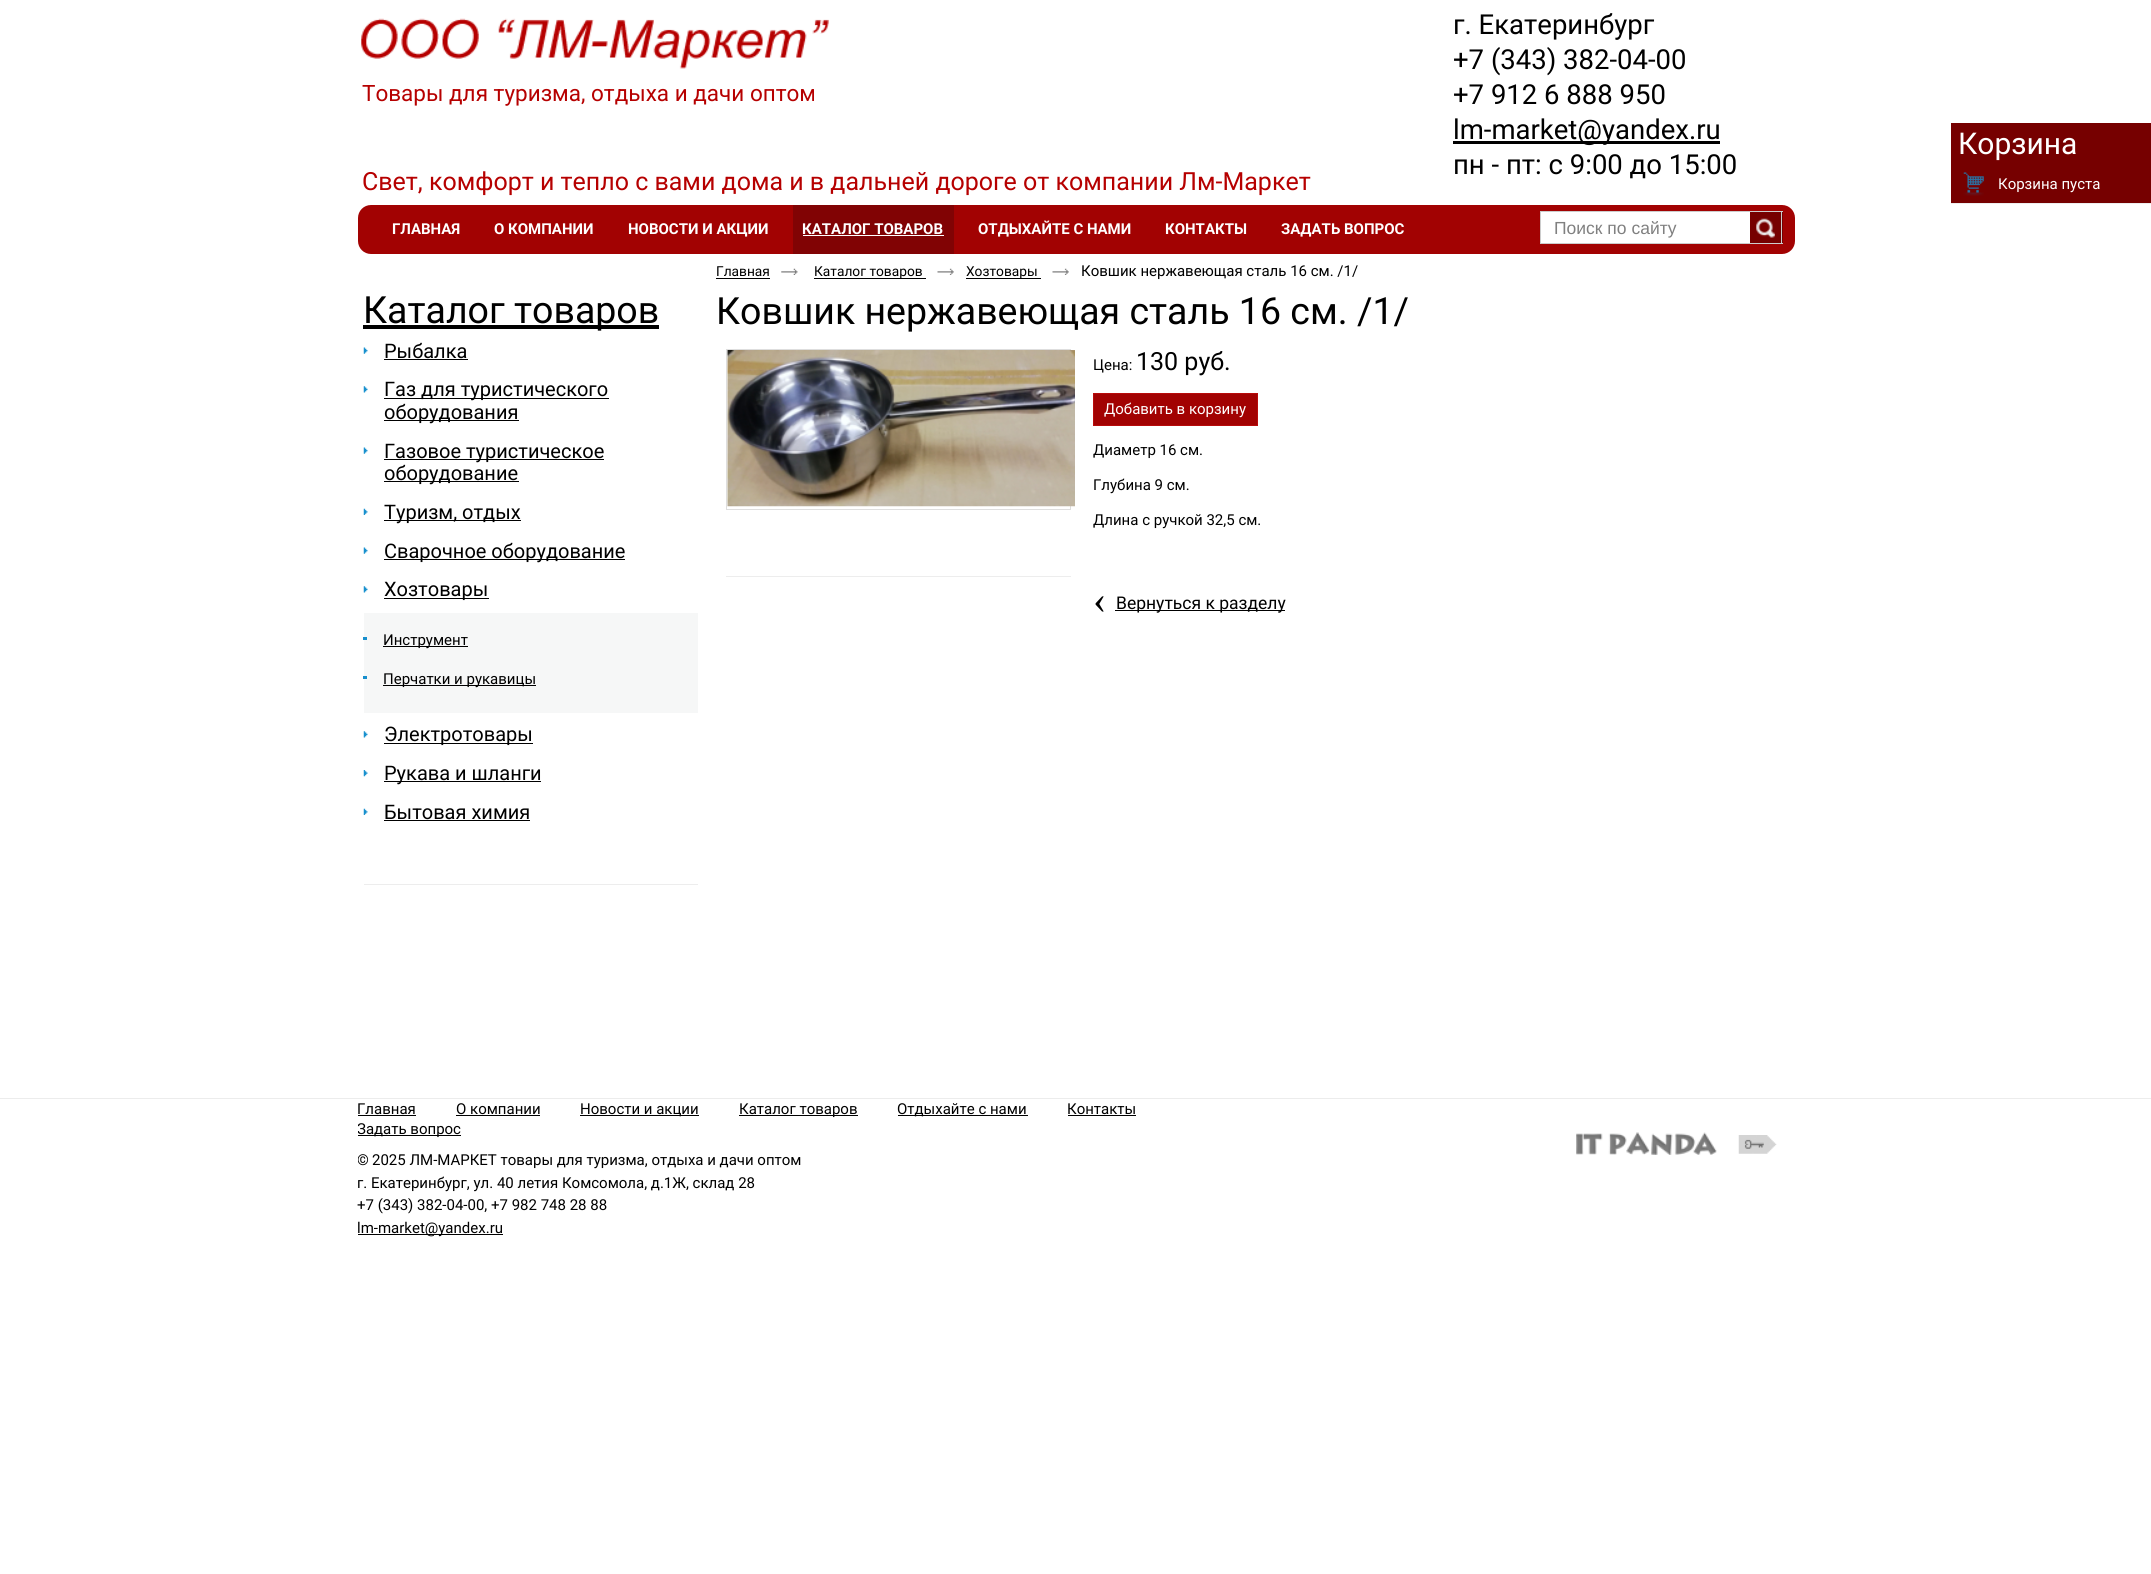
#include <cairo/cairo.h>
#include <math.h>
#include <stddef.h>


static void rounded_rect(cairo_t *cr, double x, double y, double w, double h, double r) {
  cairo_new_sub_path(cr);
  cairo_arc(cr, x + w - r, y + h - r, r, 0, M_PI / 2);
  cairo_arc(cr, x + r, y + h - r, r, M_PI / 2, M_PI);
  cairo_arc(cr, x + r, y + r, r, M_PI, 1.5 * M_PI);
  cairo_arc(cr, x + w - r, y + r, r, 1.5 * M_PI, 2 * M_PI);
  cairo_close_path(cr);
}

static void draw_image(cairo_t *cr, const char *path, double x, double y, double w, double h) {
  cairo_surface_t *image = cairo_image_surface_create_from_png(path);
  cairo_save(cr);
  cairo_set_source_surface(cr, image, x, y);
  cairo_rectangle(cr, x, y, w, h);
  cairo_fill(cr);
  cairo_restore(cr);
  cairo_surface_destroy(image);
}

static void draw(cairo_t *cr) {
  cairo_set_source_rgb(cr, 1, 1, 1);
  cairo_paint(cr);
  draw_image(cr, "images/1.png", 361, 18, 468, 51);
  cairo_set_source_rgb(cr, 0, 0, 0);
  cairo_rectangle(cr, 1453, 141, 267, 3);
  cairo_fill(cr);
  cairo_set_source_rgb(cr, 118 / 255.0, 0, 0);
  cairo_rectangle(cr, 1951, 123, 200, 80);
  cairo_fill(cr);
  cairo_set_source_rgb(cr, 237 / 255.0, 237 / 255.0, 237 / 255.0);
  cairo_rectangle(cr, 1951, 203, 200, 1);
  cairo_fill(cr);
  draw_image(cr, "images/2.png", 1963, 172, 21, 24);
  cairo_set_source_rgb(cr, 162 / 255.0, 2 / 255.0, 2 / 255.0);
  rounded_rect(cr, 358, 205, 1437, 49, 13);
  cairo_fill(cr);
  cairo_set_source_rgb(cr, 129 / 255.0, 3 / 255.0, 4 / 255.0);
  cairo_rectangle(cr, 793, 205, 161, 49);
  cairo_fill(cr);
  cairo_set_source_rgb(cr, 1, 1, 1);
  cairo_rectangle(cr, 803, 235, 141, 1);
  cairo_fill(cr);
  cairo_rectangle(cr, 1541, 212, 209, 31);
  cairo_fill(cr);
  cairo_set_source_rgb(cr, 204 / 255.0, 204 / 255.0, 204 / 255.0);
  cairo_rectangle(cr, 1540, 211, 243, 1);
  cairo_fill(cr);
  cairo_rectangle(cr, 1540, 243, 210, 1);
  cairo_fill(cr);
  cairo_rectangle(cr, 1540, 211, 1, 33);
  cairo_fill(cr);
  cairo_set_source_rgb(cr, 118 / 255.0, 0, 0);
  cairo_rectangle(cr, 1750, 212, 33, 31);
  cairo_fill(cr);
  draw_image(cr, "images/3.png", 1756, 218, 19, 20);
  cairo_set_source_rgb(cr, 204 / 255.0, 204 / 255.0, 204 / 255.0);
  cairo_rectangle(cr, 1781, 211, 1, 33);
  cairo_fill(cr);
  cairo_rectangle(cr, 1750, 243, 33, 1);
  cairo_fill(cr);
  cairo_set_source_rgb(cr, 0, 0, 0);
  cairo_rectangle(cr, 363, 325, 296, 4);
  cairo_fill(cr);
  cairo_set_source_rgb(cr, 237 / 255.0, 237 / 255.0, 237 / 255.0);
  cairo_rectangle(cr, 364, 884, 334, 1);
  cairo_fill(cr);
  draw_image(cr, "images/4.png", 363, 347, 5, 7);
  cairo_set_source_rgb(cr, 0, 0, 0);
  cairo_rectangle(cr, 384, 359, 84, 1);
  cairo_fill(cr);
  draw_image(cr, "images/5.png", 363, 386, 5, 7);
  cairo_rectangle(cr, 384, 398, 225, 1);
  cairo_fill(cr);
  cairo_rectangle(cr, 384, 420, 135, 1);
  cairo_fill(cr);
  draw_image(cr, "images/4.png", 363, 447, 5, 7);
  cairo_rectangle(cr, 384, 459, 220, 1);
  cairo_fill(cr);
  cairo_rectangle(cr, 384, 481, 135, 1);
  cairo_fill(cr);
  draw_image(cr, "images/6.png", 363, 508, 5, 7);
  cairo_rectangle(cr, 384, 520, 137, 1);
  cairo_fill(cr);
  draw_image(cr, "images/4.png", 363, 547, 5, 7);
  cairo_rectangle(cr, 384, 559, 241, 1);
  cairo_fill(cr);
  draw_image(cr, "images/5.png", 363, 586, 5, 7);
  cairo_rectangle(cr, 384, 598, 105, 1);
  cairo_fill(cr);
  cairo_set_source_rgb(cr, 246 / 255.0, 247 / 255.0, 247 / 255.0);
  cairo_rectangle(cr, 364, 613, 334, 100);
  cairo_fill(cr);
  cairo_set_source_rgb(cr, 24 / 255.0, 143 / 255.0, 205 / 255.0);
  cairo_rectangle(cr, 363, 637, 4, 3);
  cairo_fill(cr);
  cairo_set_source_rgb(cr, 0, 0, 0);
  cairo_rectangle(cr, 383, 646, 85, 1);
  cairo_fill(cr);
  cairo_set_source_rgb(cr, 24 / 255.0, 143 / 255.0, 205 / 255.0);
  cairo_rectangle(cr, 363, 676, 4, 3);
  cairo_fill(cr);
  cairo_set_source_rgb(cr, 0, 0, 0);
  cairo_rectangle(cr, 383, 685, 153, 1);
  cairo_fill(cr);
  draw_image(cr, "images/5.png", 363, 731, 5, 7);
  cairo_rectangle(cr, 384, 743, 149, 1);
  cairo_fill(cr);
  draw_image(cr, "images/7.png", 363, 770, 5, 7);
  cairo_rectangle(cr, 384, 781, 157, 1);
  cairo_fill(cr);
  draw_image(cr, "images/6.png", 363, 808, 5, 7);
  cairo_rectangle(cr, 384, 820, 146, 1);
  cairo_fill(cr);
  cairo_rectangle(cr, 716, 278, 54, 1);
  cairo_fill(cr);
  draw_image(cr, "images/8.png", 781, 268, 17, 7);
  cairo_rectangle(cr, 814, 278, 112, 1);
  cairo_fill(cr);
  draw_image(cr, "images/9.png", 937, 268, 17, 7);
  cairo_rectangle(cr, 966, 278, 75, 1);
  cairo_fill(cr);
  draw_image(cr, "images/9.png", 1052, 268, 17, 7);
  cairo_rectangle(cr, 726.5, 349.5, 344, 160);
  cairo_set_source_rgb(cr, 222 / 255.0, 222 / 255.0, 222 / 255.0);
  cairo_set_line_width(cr, 1);
  cairo_stroke(cr);
  draw_image(cr, "images/10.png", 727, 350, 348, 157);
  cairo_set_source_rgb(cr, 237 / 255.0, 237 / 255.0, 237 / 255.0);
  cairo_rectangle(cr, 726, 576, 345, 1);
  cairo_fill(cr);
  cairo_set_source_rgb(cr, 162 / 255.0, 2 / 255.0, 2 / 255.0);
  cairo_rectangle(cr, 1093.5, 393.5, 164, 32);
  cairo_fill_preserve(cr);
  cairo_set_source_rgb(cr, 184 / 255.0, 11 / 255.0, 11 / 255.0);
  cairo_stroke(cr);
  cairo_set_source_rgb(cr, 0, 0, 0);
  cairo_rectangle(cr, 1115, 610, 170, 1);
  cairo_fill(cr);
  cairo_set_source_rgb(cr, 236 / 255.0, 236 / 255.0, 236 / 255.0);
  cairo_rectangle(cr, 0, 1098, 2151, 1);
  cairo_fill(cr);
  cairo_set_source_rgb(cr, 0, 0, 0);
  cairo_rectangle(cr, 358, 1115, 58, 1);
  cairo_fill(cr);
  cairo_rectangle(cr, 456, 1115, 84, 1);
  cairo_fill(cr);
  cairo_rectangle(cr, 580, 1115, 119, 1);
  cairo_fill(cr);
  cairo_rectangle(cr, 739, 1115, 119, 1);
  cairo_fill(cr);
  cairo_rectangle(cr, 898, 1115, 130, 1);
  cairo_fill(cr);
  cairo_rectangle(cr, 1068, 1115, 68, 1);
  cairo_fill(cr);
  cairo_rectangle(cr, 358, 1135, 103, 1);
  cairo_fill(cr);
  draw_image(cr, "images/11.png", 1576, 1132, 141, 23);
  draw_image(cr, "images/12.png", 1738, 1135, 39, 19);
  cairo_rectangle(cr, 358, 1234, 145, 1);
  cairo_fill(cr);
  cairo_select_font_face(cr, "Roboto", CAIRO_FONT_SLANT_NORMAL, CAIRO_FONT_WEIGHT_NORMAL);
  cairo_set_font_size(cr, 27.5);
  cairo_move_to(cr, 1453, 34);
  cairo_show_text(cr, "г. Екатеринбург");
  cairo_move_to(cr, 1453, 69);
  cairo_show_text(cr, "+7 (343) 382-04-00");
  cairo_move_to(cr, 1453, 104);
  cairo_show_text(cr, "+7 912 6 888 950");
  cairo_move_to(cr, 1453, 139);
  cairo_show_text(cr, "lm-market@yandex.ru");
  cairo_move_to(cr, 1453, 174);
  cairo_show_text(cr, "пн - пт: с 9:00 до 15:00");
  cairo_set_font_size(cr, 22.5);
  cairo_set_source_rgb(cr, 182 / 255.0, 0, 0);
  cairo_move_to(cr, 362, 101);
  cairo_show_text(cr, "Товары для туризма, отдыха и дачи оптом");
  cairo_set_font_size(cr, 25);
  cairo_move_to(cr, 362, 190);
  cairo_show_text(cr, "Свет, комфорт и тепло с вами дома и в дальней дороге от компании Лм-Маркет");
  cairo_set_font_size(cr, 30);
  cairo_set_source_rgb(cr, 1, 1, 1);
  cairo_move_to(cr, 1958, 154);
  cairo_show_text(cr, "Корзина");
  cairo_set_font_size(cr, 15);
  cairo_move_to(cr, 1998, 189);
  cairo_show_text(cr, "Корзина пуста");
  cairo_select_font_face(cr, "Roboto", CAIRO_FONT_SLANT_NORMAL, CAIRO_FONT_WEIGHT_BOLD);
  cairo_move_to(cr, 392, 234);
  cairo_show_text(cr, "ГЛАВНАЯ");
  cairo_move_to(cr, 494, 234);
  cairo_show_text(cr, "О КОМПАНИИ");
  cairo_move_to(cr, 628, 234);
  cairo_show_text(cr, "НОВОСТИ И АКЦИИ");
  cairo_move_to(cr, 802, 234);
  cairo_show_text(cr, "КАТАЛОГ ТОВАРОВ");
  cairo_move_to(cr, 978, 234);
  cairo_show_text(cr, "ОТДЫХАЙТЕ С НАМИ");
  cairo_move_to(cr, 1165, 234);
  cairo_show_text(cr, "КОНТАКТЫ");
  cairo_move_to(cr, 1281, 234);
  cairo_show_text(cr, "ЗАДАТЬ ВОПРОС");
  cairo_select_font_face(cr, "Liberation Sans", CAIRO_FONT_SLANT_NORMAL, CAIRO_FONT_WEIGHT_NORMAL);
  cairo_set_font_size(cr, 17.5);
  cairo_set_source_rgb(cr, 128 / 255.0, 128 / 255.0, 128 / 255.0);
  cairo_move_to(cr, 1554, 234);
  cairo_show_text(cr, "Поиск по сайту");
  cairo_select_font_face(cr, "Roboto", CAIRO_FONT_SLANT_NORMAL, CAIRO_FONT_WEIGHT_NORMAL);
  cairo_set_font_size(cr, 37.5);
  cairo_set_source_rgb(cr, 0, 0, 0);
  cairo_move_to(cr, 363, 323);
  cairo_show_text(cr, "Каталог товаров");
  cairo_set_font_size(cr, 20);
  cairo_move_to(cr, 384, 358);
  cairo_show_text(cr, "Рыбалка");
  cairo_move_to(cr, 384, 396);
  cairo_show_text(cr, "Газ для туристического");
  cairo_move_to(cr, 384, 419);
  cairo_show_text(cr, "оборудования");
  cairo_move_to(cr, 384, 458);
  cairo_show_text(cr, "Газовое туристическое");
  cairo_move_to(cr, 384, 480);
  cairo_show_text(cr, "оборудование");
  cairo_move_to(cr, 384, 519);
  cairo_show_text(cr, "Туризм, отдых");
  cairo_move_to(cr, 384, 558);
  cairo_show_text(cr, "Сварочное оборудование");
  cairo_move_to(cr, 384, 596);
  cairo_show_text(cr, "Хозтовары");
  cairo_set_font_size(cr, 15);
  cairo_move_to(cr, 383, 645);
  cairo_show_text(cr, "Инструмент");
  cairo_move_to(cr, 383, 684);
  cairo_show_text(cr, "Перчатки и рукавицы");
  cairo_set_font_size(cr, 20);
  cairo_move_to(cr, 384, 741);
  cairo_show_text(cr, "Электротовары");
  cairo_move_to(cr, 384, 780);
  cairo_show_text(cr, "Рукава и шланги");
  cairo_move_to(cr, 384, 819);
  cairo_show_text(cr, "Бытовая химия");
  cairo_set_font_size(cr, 13.75);
  cairo_move_to(cr, 716, 276);
  cairo_show_text(cr, "Главная");
  cairo_move_to(cr, 814, 276);
  cairo_show_text(cr, "Каталог товаров");
  cairo_move_to(cr, 966, 276);
  cairo_show_text(cr, "Хозтовары");
  cairo_set_font_size(cr, 15);
  cairo_move_to(cr, 1081, 276);
  cairo_show_text(cr, "Ковшик нержавеющая сталь 16 см. /1/");
  cairo_set_font_size(cr, 37.5);
  cairo_move_to(cr, 716, 324);
  cairo_show_text(cr, "Ковшик нержавеющая сталь 16 см. /1/");
  cairo_set_font_size(cr, 15);
  cairo_move_to(cr, 1093, 370);
  cairo_show_text(cr, "Цена:");
  cairo_set_font_size(cr, 25);
  cairo_move_to(cr, 1136, 370);
  cairo_show_text(cr, "130 руб.");
  cairo_set_font_size(cr, 15);
  cairo_set_source_rgb(cr, 1, 1, 1);
  cairo_move_to(cr, 1104, 414);
  cairo_show_text(cr, "Добавить в корзину");
  cairo_set_source_rgb(cr, 0, 0, 0);
  cairo_move_to(cr, 1093, 455);
  cairo_show_text(cr, "Диаметр 16 см.");
  cairo_move_to(cr, 1093, 490);
  cairo_show_text(cr, "Глубина 9 см.");
  cairo_move_to(cr, 1093, 525);
  cairo_show_text(cr, "Длина с ручкой 32,5 см.");
  cairo_select_font_face(cr, "Liberation Serif", CAIRO_FONT_SLANT_NORMAL, CAIRO_FONT_WEIGHT_NORMAL);
  cairo_set_font_size(cr, 40);
  cairo_move_to(cr, 1093, 613);
  cairo_show_text(cr, "‹");
  cairo_select_font_face(cr, "Roboto", CAIRO_FONT_SLANT_NORMAL, CAIRO_FONT_WEIGHT_NORMAL);
  cairo_set_font_size(cr, 17.5);
  cairo_move_to(cr, 1116, 609);
  cairo_show_text(cr, "Вернуться к разделу");
  cairo_set_font_size(cr, 15);
  cairo_move_to(cr, 357, 1114);
  cairo_show_text(cr, "Главная");
  cairo_move_to(cr, 456, 1114);
  cairo_show_text(cr, "О компании");
  cairo_move_to(cr, 580, 1114);
  cairo_show_text(cr, "Новости и акции");
  cairo_move_to(cr, 739, 1114);
  cairo_show_text(cr, "Каталог товаров");
  cairo_move_to(cr, 897, 1114);
  cairo_show_text(cr, "Отдыхайте с нами");
  cairo_move_to(cr, 1067, 1114);
  cairo_show_text(cr, "Контакты");
  cairo_save(cr);
  cairo_rectangle(cr, 358, 1099, 781, 50);
  cairo_clip(cr);
  cairo_move_to(cr, 357, 1134);
  cairo_show_text(cr, "Задать вопрос");
  cairo_restore(cr);
  cairo_save(cr);
  cairo_rectangle(cr, 358, 1099, 1437, 140);
  cairo_clip(cr);
  cairo_move_to(cr, 357, 1165);
  cairo_show_text(cr, "©");
  cairo_restore(cr);
  cairo_move_to(cr, 372, 1165);
  cairo_show_text(cr, "2025 ЛМ-МАРКЕТ товары для туризма, отдыха и дачи оптом");
  cairo_move_to(cr, 357, 1188);
  cairo_show_text(cr, "г. Екатеринбург, ул. 40 летия Комсомола, д.1Ж, склад 28");
  cairo_move_to(cr, 357, 1210);
  cairo_show_text(cr, "+7 (343) 382-04-00, +7 982 748 28 88");
  cairo_move_to(cr, 357, 1233);
  cairo_show_text(cr, "lm-market@yandex.ru");
}

int main(void) {
  cairo_surface_t *surface = cairo_image_surface_create(CAIRO_FORMAT_RGB24, 2151, 1574);
  cairo_t *cr = cairo_create(surface);
  cairo_font_options_t *options = cairo_font_options_create();
  cairo_font_options_set_hint_metrics(options, CAIRO_HINT_METRICS_OFF);
  cairo_font_options_set_hint_style(options, CAIRO_HINT_STYLE_NONE);
  cairo_set_font_options(cr, options);
  cairo_set_miter_limit(cr, 4);
  draw(cr);
  cairo_surface_write_to_png(surface, "out.png");
  cairo_font_options_destroy(options);
  cairo_destroy(cr);
  cairo_surface_destroy(surface);
  return 0;
}
